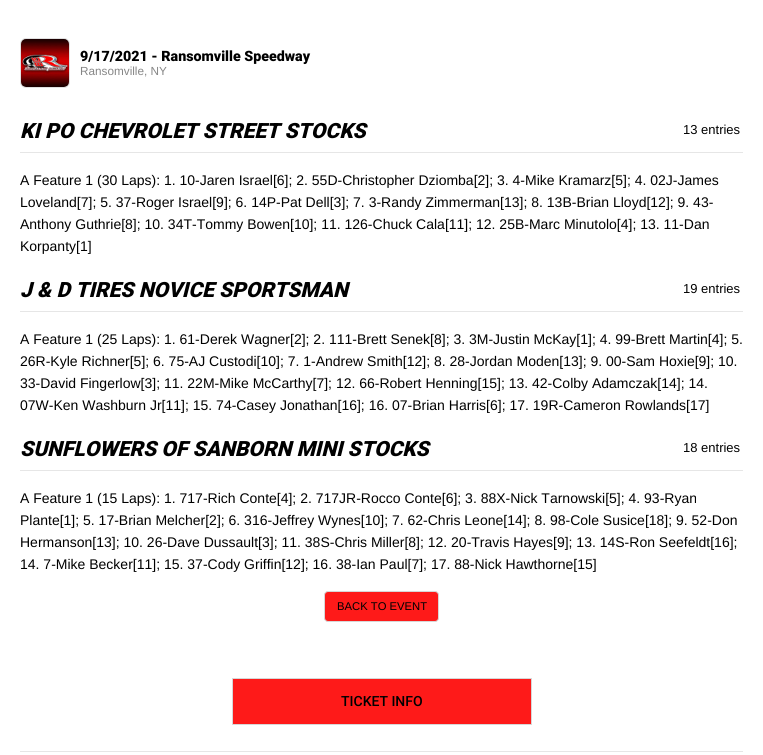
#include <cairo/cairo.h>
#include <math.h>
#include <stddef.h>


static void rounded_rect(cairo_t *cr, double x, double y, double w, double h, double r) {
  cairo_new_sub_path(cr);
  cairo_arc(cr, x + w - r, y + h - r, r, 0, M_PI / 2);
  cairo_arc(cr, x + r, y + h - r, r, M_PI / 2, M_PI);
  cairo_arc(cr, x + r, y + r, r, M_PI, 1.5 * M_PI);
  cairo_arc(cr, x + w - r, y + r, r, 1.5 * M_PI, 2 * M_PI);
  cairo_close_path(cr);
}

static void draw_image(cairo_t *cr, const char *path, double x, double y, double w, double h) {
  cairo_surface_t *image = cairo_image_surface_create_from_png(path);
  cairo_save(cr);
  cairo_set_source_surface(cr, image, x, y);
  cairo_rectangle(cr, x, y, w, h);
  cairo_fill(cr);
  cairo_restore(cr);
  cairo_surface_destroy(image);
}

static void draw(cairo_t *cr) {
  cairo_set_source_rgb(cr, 1, 1, 1);
  cairo_paint(cr);
  rounded_rect(cr, 20.5, 38.5, 49, 49, 5.5);
  cairo_set_source_rgb(cr, 225 / 255.0, 225 / 255.0, 225 / 255.0);
  cairo_set_line_width(cr, 1);
  cairo_stroke(cr);
  draw_image(cr, "images/1.png", 21, 39, 48, 48);
  cairo_set_source_rgb(cr, 230 / 255.0, 230 / 255.0, 230 / 255.0);
  cairo_rectangle(cr, 20, 152, 723, 1);
  cairo_fill(cr);
  cairo_rectangle(cr, 20, 311, 723, 1);
  cairo_fill(cr);
  cairo_rectangle(cr, 20, 470, 723, 1);
  cairo_fill(cr);
  cairo_set_source_rgb(cr, 254 / 255.0, 26 / 255.0, 25 / 255.0);
  rounded_rect(cr, 324.5, 591.5, 114, 30, 3.5);
  cairo_fill_preserve(cr);
  cairo_set_source_rgb(cr, 215 / 255.0, 215 / 255.0, 215 / 255.0);
  cairo_stroke(cr);
  cairo_set_source_rgb(cr, 254 / 255.0, 26 / 255.0, 25 / 255.0);
  cairo_rectangle(cr, 232.5, 678.5, 299, 46);
  cairo_fill_preserve(cr);
  cairo_set_source_rgb(cr, 215 / 255.0, 215 / 255.0, 215 / 255.0);
  cairo_stroke(cr);
  cairo_set_source_rgb(cr, 230 / 255.0, 230 / 255.0, 230 / 255.0);
  cairo_rectangle(cr, 20, 751, 723, 1);
  cairo_fill(cr);
  cairo_select_font_face(cr, "Roboto Black", CAIRO_FONT_SLANT_NORMAL, CAIRO_FONT_WEIGHT_NORMAL);
  cairo_set_font_size(cr, 14.25);
  cairo_set_source_rgb(cr, 0, 0, 0);
  cairo_move_to(cr, 80, 61);
  cairo_show_text(cr, "9/17/2021 - Ransomville Speedway");
  cairo_select_font_face(cr, "Liberation Sans", CAIRO_FONT_SLANT_NORMAL, CAIRO_FONT_WEIGHT_NORMAL);
  cairo_set_font_size(cr, 11.75);
  cairo_set_source_rgb(cr, 134 / 255.0, 134 / 255.0, 134 / 255.0);
  cairo_move_to(cr, 80, 75);
  cairo_show_text(cr, "Ransomville, NY");
  cairo_select_font_face(cr, "Roboto Black", CAIRO_FONT_SLANT_ITALIC, CAIRO_FONT_WEIGHT_NORMAL);
  cairo_set_font_size(cr, 21);
  cairo_set_source_rgb(cr, 0, 0, 0);
  cairo_move_to(cr, 20, 138);
  cairo_show_text(cr, "KI PO CHEVROLET STREET STOCKS");
  cairo_select_font_face(cr, "Liberation Sans", CAIRO_FONT_SLANT_NORMAL, CAIRO_FONT_WEIGHT_NORMAL);
  cairo_set_font_size(cr, 13);
  cairo_move_to(cr, 683, 134);
  cairo_show_text(cr, "13 entries");
  cairo_set_font_size(cr, 14);
  cairo_move_to(cr, 20, 185);
  cairo_show_text(cr, "A Feature 1 (30 Laps): 1. 10-Jaren Israel[6]; 2. 55D-Christopher Dziomba[2]; 3. 4-Mike Kramarz[5]; 4. 02J-James");
  cairo_move_to(cr, 20, 207);
  cairo_show_text(cr, "Loveland[7]; 5. 37-Roger Israel[9]; 6. 14P-Pat Dell[3]; 7. 3-Randy Zimmerman[13]; 8. 13B-Brian Lloyd[12]; 9. 43-");
  cairo_move_to(cr, 20, 229);
  cairo_show_text(cr, "Anthony Guthrie[8]; 10. 34T-Tommy Bowen[10]; 11. 126-Chuck Cala[11]; 12. 25B-Marc Minutolo[4]; 13. 11-Dan");
  cairo_move_to(cr, 20, 251);
  cairo_show_text(cr, "Korpanty[1]");
  cairo_select_font_face(cr, "Roboto Black", CAIRO_FONT_SLANT_ITALIC, CAIRO_FONT_WEIGHT_NORMAL);
  cairo_set_font_size(cr, 21);
  cairo_move_to(cr, 20, 297);
  cairo_show_text(cr, "J & D TIRES NOVICE SPORTSMAN");
  cairo_select_font_face(cr, "Liberation Sans", CAIRO_FONT_SLANT_NORMAL, CAIRO_FONT_WEIGHT_NORMAL);
  cairo_set_font_size(cr, 13);
  cairo_move_to(cr, 683, 293);
  cairo_show_text(cr, "19 entries");
  cairo_set_font_size(cr, 14);
  cairo_move_to(cr, 20, 344);
  cairo_show_text(cr, "A Feature 1 (25 Laps): 1. 61-Derek Wagner[2]; 2. 111-Brett Senek[8]; 3. 3M-Justin McKay[1]; 4. 99-Brett Martin[4]; 5.");
  cairo_move_to(cr, 20, 366);
  cairo_show_text(cr, "26R-Kyle Richner[5]; 6. 75-AJ Custodi[10]; 7. 1-Andrew Smith[12]; 8. 28-Jordan Moden[13]; 9. 00-Sam Hoxie[9]; 10.");
  cairo_move_to(cr, 20, 388);
  cairo_show_text(cr, "33-David Fingerlow[3]; 11. 22M-Mike McCarthy[7]; 12. 66-Robert Henning[15]; 13. 42-Colby Adamczak[14]; 14.");
  cairo_move_to(cr, 20, 410);
  cairo_show_text(cr, "07W-Ken Washburn Jr[11]; 15. 74-Casey Jonathan[16]; 16. 07-Brian Harris[6]; 17. 19R-Cameron Rowlands[17]");
  cairo_select_font_face(cr, "Roboto Black", CAIRO_FONT_SLANT_ITALIC, CAIRO_FONT_WEIGHT_NORMAL);
  cairo_set_font_size(cr, 21);
  cairo_move_to(cr, 20, 456);
  cairo_show_text(cr, "SUNFLOWERS OF SANBORN MINI STOCKS");
  cairo_select_font_face(cr, "Liberation Sans", CAIRO_FONT_SLANT_NORMAL, CAIRO_FONT_WEIGHT_NORMAL);
  cairo_set_font_size(cr, 13);
  cairo_move_to(cr, 683, 452);
  cairo_show_text(cr, "18 entries");
  cairo_set_font_size(cr, 14);
  cairo_move_to(cr, 20, 503);
  cairo_show_text(cr, "A Feature 1 (15 Laps): 1. 717-Rich Conte[4]; 2. 717JR-Rocco Conte[6]; 3. 88X-Nick Tarnowski[5]; 4. 93-Ryan");
  cairo_move_to(cr, 20, 525);
  cairo_show_text(cr, "Plante[1]; 5. 17-Brian Melcher[2]; 6. 316-Jeffrey Wynes[10]; 7. 62-Chris Leone[14]; 8. 98-Cole Susice[18]; 9. 52-Don");
  cairo_move_to(cr, 20, 547);
  cairo_show_text(cr, "Hermanson[13]; 10. 26-Dave Dussault[3]; 11. 38S-Chris Miller[8]; 12. 20-Travis Hayes[9]; 13. 14S-Ron Seefeldt[16];");
  cairo_move_to(cr, 20, 569);
  cairo_show_text(cr, "14. 7-Mike Becker[11]; 15. 37-Cody Griffin[12]; 16. 38-Ian Paul[7]; 17. 88-Nick Hawthorne[15]");
  cairo_set_font_size(cr, 11.25);
  cairo_move_to(cr, 337, 610);
  cairo_show_text(cr, "BACK TO EVENT");
  cairo_select_font_face(cr, "Roboto Medium", CAIRO_FONT_SLANT_NORMAL, CAIRO_FONT_WEIGHT_NORMAL);
  cairo_set_font_size(cr, 14);
  cairo_move_to(cr, 341, 706);
  cairo_show_text(cr, "TICKET INFO");
}

int main(void) {
  cairo_surface_t *surface = cairo_image_surface_create(CAIRO_FORMAT_RGB24, 763, 755);
  cairo_t *cr = cairo_create(surface);
  cairo_font_options_t *options = cairo_font_options_create();
  cairo_font_options_set_hint_metrics(options, CAIRO_HINT_METRICS_OFF);
  cairo_font_options_set_hint_style(options, CAIRO_HINT_STYLE_NONE);
  cairo_set_font_options(cr, options);
  cairo_set_miter_limit(cr, 4);
  draw(cr);
  cairo_surface_write_to_png(surface, "out.png");
  cairo_font_options_destroy(options);
  cairo_destroy(cr);
  cairo_surface_destroy(surface);
  return 0;
}
